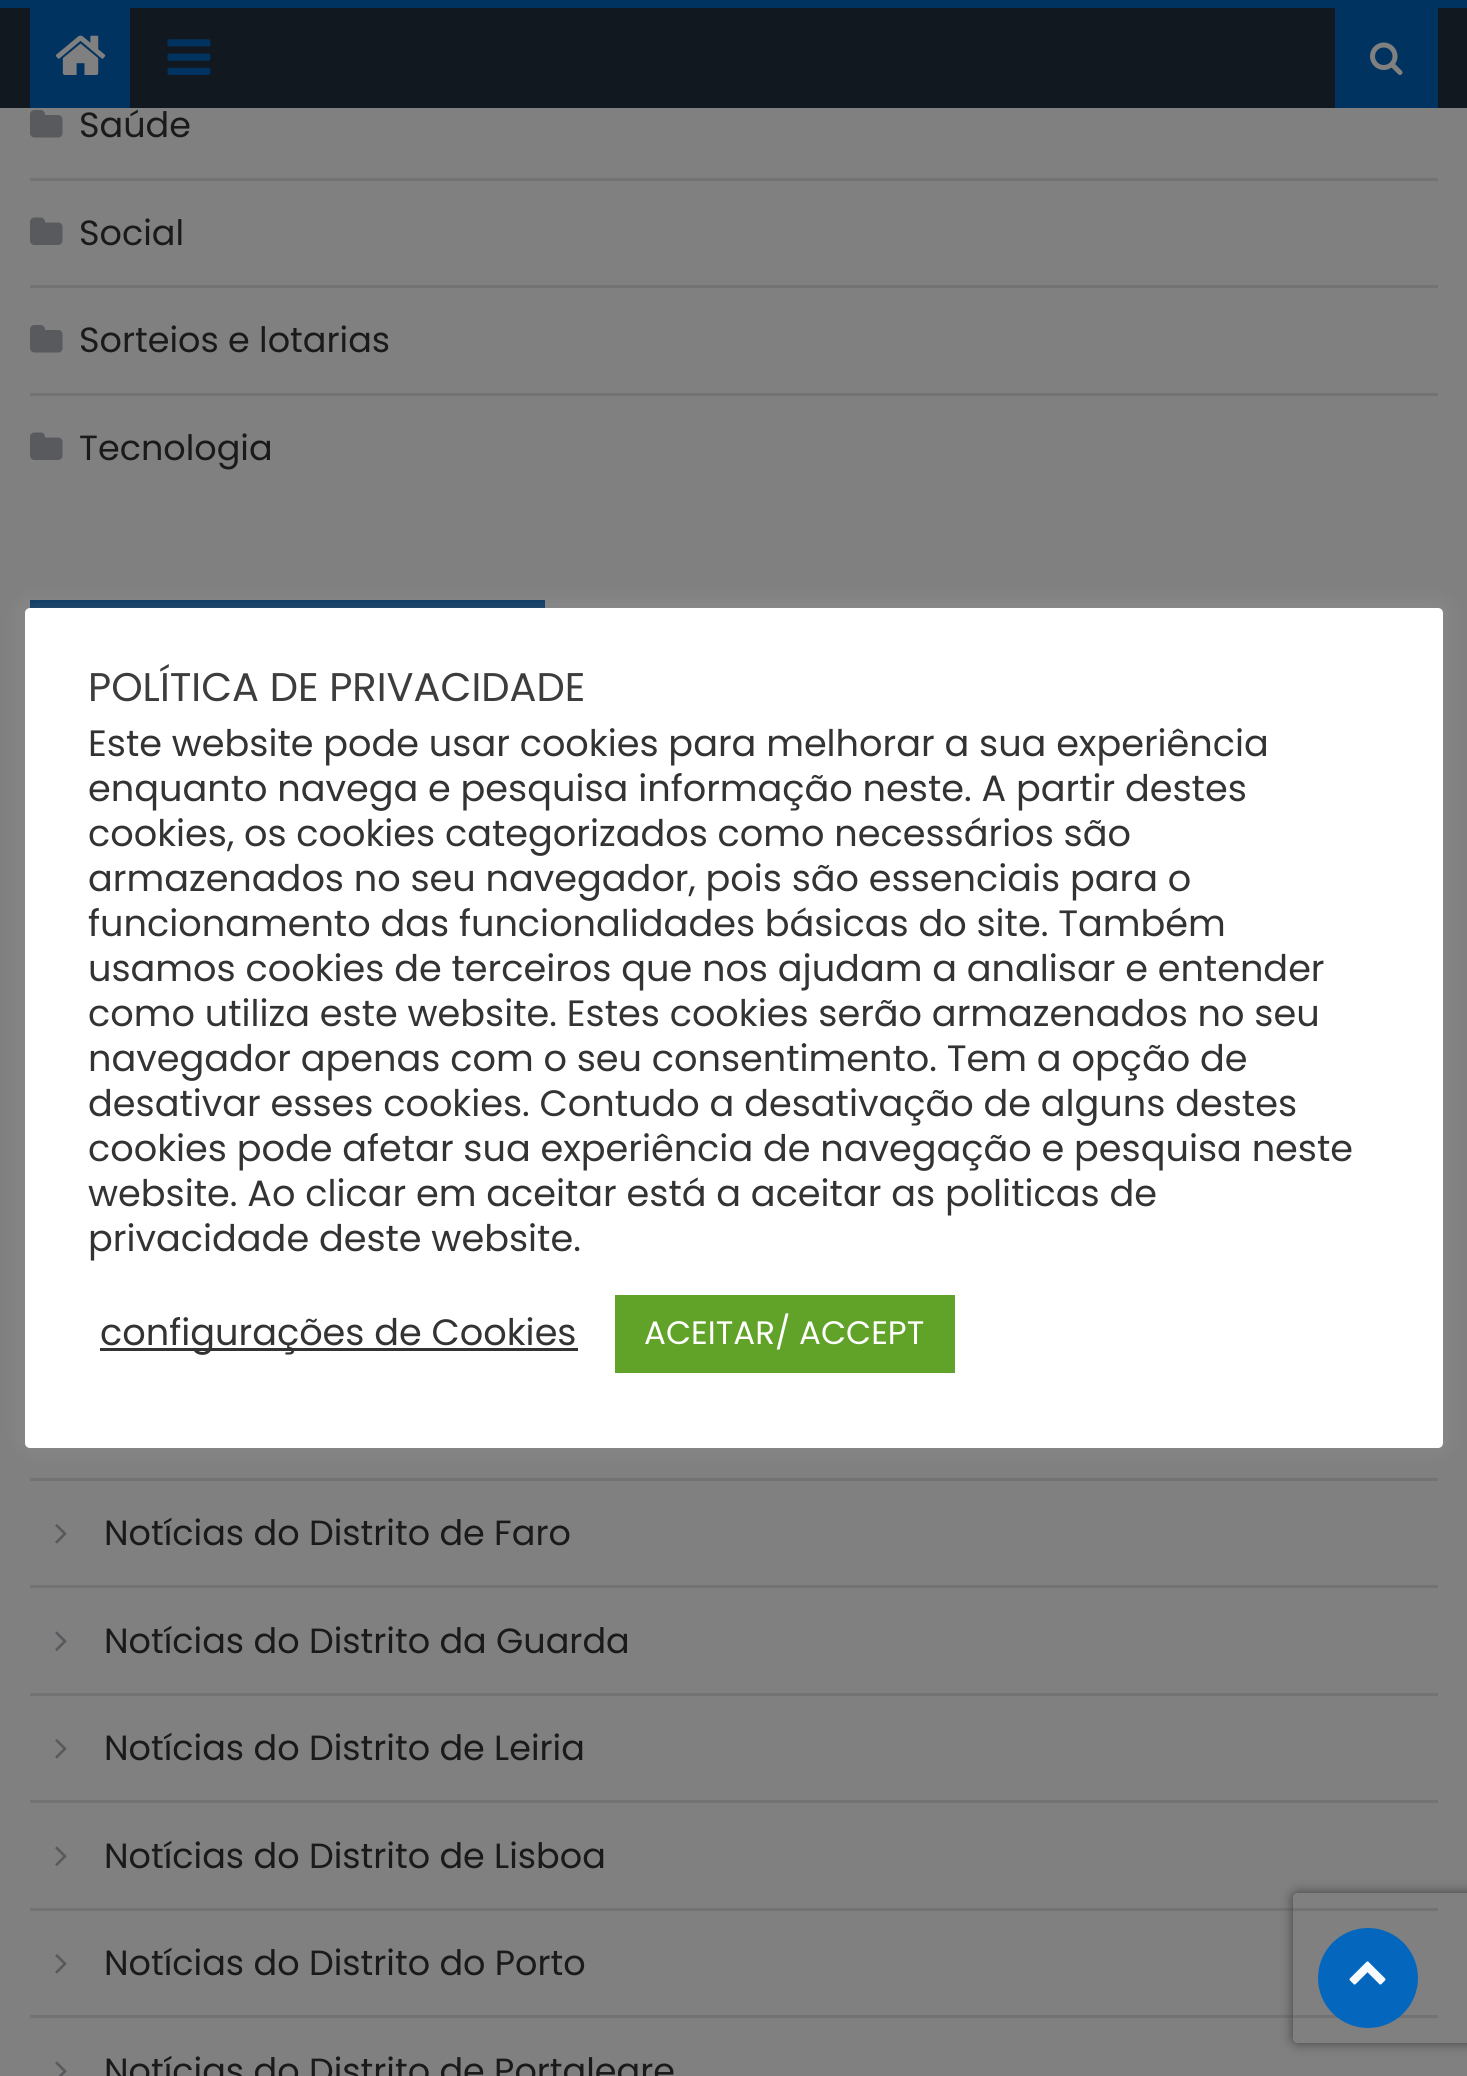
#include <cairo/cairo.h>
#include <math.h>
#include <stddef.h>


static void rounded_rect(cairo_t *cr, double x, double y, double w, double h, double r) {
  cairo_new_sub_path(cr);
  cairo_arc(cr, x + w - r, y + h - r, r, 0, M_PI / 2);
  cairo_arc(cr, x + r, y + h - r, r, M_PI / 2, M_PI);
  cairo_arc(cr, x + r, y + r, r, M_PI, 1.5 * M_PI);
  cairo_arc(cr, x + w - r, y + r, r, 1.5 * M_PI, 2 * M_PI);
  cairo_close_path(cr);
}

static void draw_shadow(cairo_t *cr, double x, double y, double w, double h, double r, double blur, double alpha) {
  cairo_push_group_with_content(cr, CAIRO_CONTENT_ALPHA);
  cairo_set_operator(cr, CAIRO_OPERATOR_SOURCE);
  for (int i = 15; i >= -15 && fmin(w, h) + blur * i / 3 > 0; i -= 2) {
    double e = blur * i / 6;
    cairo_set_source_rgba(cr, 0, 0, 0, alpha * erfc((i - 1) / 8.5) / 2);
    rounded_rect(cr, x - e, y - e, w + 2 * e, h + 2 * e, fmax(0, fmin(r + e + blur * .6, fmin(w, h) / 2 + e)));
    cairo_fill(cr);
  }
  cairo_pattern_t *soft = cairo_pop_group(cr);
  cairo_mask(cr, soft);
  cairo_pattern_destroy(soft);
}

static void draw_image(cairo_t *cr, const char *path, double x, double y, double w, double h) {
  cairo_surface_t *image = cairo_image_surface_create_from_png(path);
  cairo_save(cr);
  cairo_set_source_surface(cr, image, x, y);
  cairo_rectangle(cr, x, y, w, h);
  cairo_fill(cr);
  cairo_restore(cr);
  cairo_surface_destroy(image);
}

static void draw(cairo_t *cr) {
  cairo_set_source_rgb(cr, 128 / 255.0, 128 / 255.0, 128 / 255.0);
  cairo_paint(cr);
  cairo_set_source_rgb(cr, 18 / 255.0, 24 / 255.0, 32 / 255.0);
  cairo_rectangle(cr, 0, 8, 1467, 100);
  cairo_fill(cr);
  cairo_set_source_rgb(cr, 1 / 255.0, 51 / 255.0, 96 / 255.0);
  cairo_rectangle(cr, 0, 0, 1467, 8);
  cairo_fill(cr);
  cairo_rectangle(cr, 30, 8, 100, 100);
  cairo_fill(cr);
  draw_image(cr, "images/1.png", 55, 35, 51, 40);
  draw_image(cr, "images/2.png", 167, 39, 44, 36);
  cairo_rectangle(cr, 1335, 8, 103, 100);
  cairo_fill(cr);
  draw_image(cr, "images/3.png", 1370, 42, 33, 33);
  cairo_set_source_rgb(cr, 115 / 255.0, 115 / 255.0, 115 / 255.0);
  cairo_rectangle(cr, 30, 178, 1408, 3);
  cairo_fill(cr);
  draw_image(cr, "images/4.png", 30, 110, 33, 28);
  cairo_rectangle(cr, 30, 285, 1408, 3);
  cairo_fill(cr);
  draw_image(cr, "images/5.png", 30, 217, 33, 28);
  cairo_rectangle(cr, 30, 393, 1408, 3);
  cairo_fill(cr);
  draw_image(cr, "images/4.png", 30, 325, 33, 28);
  draw_image(cr, "images/5.png", 30, 432, 33, 28);
  cairo_set_source_rgb(cr, 1 / 255.0, 51 / 255.0, 96 / 255.0);
  cairo_rectangle(cr, 30, 600, 515, 8);
  cairo_fill(cr);
  cairo_set_source_rgb(cr, 115 / 255.0, 115 / 255.0, 115 / 255.0);
  cairo_rectangle(cr, 30, 1478, 1408, 3);
  cairo_fill(cr);
  cairo_rectangle(cr, 30, 1585, 1408, 3);
  cairo_fill(cr);
  draw_image(cr, "images/6.png", 55, 1524, 12, 20);
  cairo_rectangle(cr, 30, 1693, 1408, 3);
  cairo_fill(cr);
  draw_image(cr, "images/7.png", 55, 1631, 12, 20);
  cairo_rectangle(cr, 30, 1800, 1408, 3);
  cairo_fill(cr);
  draw_image(cr, "images/6.png", 55, 1739, 12, 20);
  cairo_rectangle(cr, 30, 1908, 1408, 3);
  cairo_fill(cr);
  draw_image(cr, "images/7.png", 55, 1846, 12, 20);
  cairo_rectangle(cr, 30, 2015, 1408, 3);
  cairo_fill(cr);
  draw_image(cr, "images/6.png", 55, 1954, 12, 20);
  draw_image(cr, "images/8.png", 55, 2061, 12, 15);
  cairo_save(cr);
  cairo_set_fill_rule(cr, CAIRO_FILL_RULE_EVEN_ODD);
  cairo_new_path(cr);
  cairo_move_to(cr, 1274, 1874);
  cairo_line_to(cr, 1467, 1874);
  cairo_line_to(cr, 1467, 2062);
  cairo_line_to(cr, 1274, 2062);
  cairo_close_path(cr);
  cairo_move_to(cr, 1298, 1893);
  cairo_line_to(cr, 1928, 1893);
  cairo_curve_to(cr, 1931, 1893, 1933, 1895, 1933, 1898);
  cairo_line_to(cr, 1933, 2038);
  cairo_curve_to(cr, 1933, 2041, 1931, 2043, 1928, 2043);
  cairo_line_to(cr, 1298, 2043);
  cairo_curve_to(cr, 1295, 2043, 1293, 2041, 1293, 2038);
  cairo_line_to(cr, 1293, 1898);
  cairo_curve_to(cr, 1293, 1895, 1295, 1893, 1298, 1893);
  cairo_close_path(cr);
  cairo_clip(cr);
  cairo_set_source_rgb(cr, 64 / 255.0, 64 / 255.0, 64 / 255.0);
  draw_shadow(cr, 1293, 1893, 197, 150, 5, 6, 1);
  cairo_restore(cr);
  cairo_set_source_rgba(cr, 1 / 255.0, 102 / 255.0, 191 / 255.0, 0.97);
  cairo_arc(cr, 1368, 1978, 50, 0, 2 * M_PI);
  cairo_fill(cr);
  draw_image(cr, "images/9.png", 1349, 1961, 37, 24);
  cairo_set_source_rgb(cr, 172 / 255.0, 171 / 255.0, 171 / 255.0);
  draw_shadow(cr, 25, 605, 1418, 840, 5, 12.5, 0.3);
  cairo_set_source_rgb(cr, 1, 1, 1);
  rounded_rect(cr, 25, 608, 1418, 840, 5);
  cairo_fill(cr);
  cairo_set_source_rgb(cr, 51 / 255.0, 51 / 255.0, 51 / 255.0);
  cairo_rectangle(cr, 100, 1348, 478, 3);
  cairo_fill(cr);
  cairo_set_source_rgb(cr, 97 / 255.0, 162 / 255.0, 41 / 255.0);
  cairo_rectangle(cr, 615, 1295, 340, 78);
  cairo_fill(cr);
  cairo_select_font_face(cr, "Poppins", CAIRO_FONT_SLANT_NORMAL, CAIRO_FONT_WEIGHT_NORMAL);
  cairo_set_font_size(cr, 35);
  cairo_set_source_rgb(cr, 26 / 255.0, 26 / 255.0, 26 / 255.0);
  cairo_move_to(cr, 79, 137);
  cairo_show_text(cr, "Saúde");
  cairo_move_to(cr, 79, 245);
  cairo_show_text(cr, "Social");
  cairo_move_to(cr, 79, 352);
  cairo_show_text(cr, "Sorteios e lotarias");
  cairo_move_to(cr, 79, 460);
  cairo_show_text(cr, "Tecnologia");
  cairo_move_to(cr, 104, 1545);
  cairo_show_text(cr, "Notícias do Distrito de Faro");
  cairo_move_to(cr, 104, 1653);
  cairo_show_text(cr, "Notícias do Distrito da Guarda");
  cairo_move_to(cr, 104, 1760);
  cairo_show_text(cr, "Notícias do Distrito de Leiria");
  cairo_move_to(cr, 104, 1868);
  cairo_show_text(cr, "Notícias do Distrito de Lisboa");
  cairo_move_to(cr, 104, 1975);
  cairo_show_text(cr, "Notícias do Distrito do Porto");
  cairo_move_to(cr, 104, 2083);
  cairo_show_text(cr, "Notícias do Distrito de Portalegre");
  cairo_set_font_size(cr, 40);
  cairo_set_source_rgb(cr, 61 / 255.0, 61 / 255.0, 61 / 255.0);
  cairo_move_to(cr, 88, 701);
  cairo_show_text(cr, "POLÍTICA DE PRIVACIDADE");
  cairo_set_font_size(cr, 36.65);
  cairo_set_source_rgb(cr, 51 / 255.0, 51 / 255.0, 51 / 255.0);
  cairo_move_to(cr, 88, 756);
  cairo_show_text(cr, "Este website pode usar cookies para melhorar a sua experiência");
  cairo_move_to(cr, 88, 801);
  cairo_show_text(cr, "enquanto navega e pesquisa informação neste. A partir destes");
  cairo_move_to(cr, 88, 846);
  cairo_show_text(cr, "cookies, os cookies categorizados como necessários são");
  cairo_move_to(cr, 88, 891);
  cairo_show_text(cr, "armazenados no seu navegador, pois são essenciais para o");
  cairo_move_to(cr, 88, 936);
  cairo_show_text(cr, "funcionamento das funcionalidades básicas do site. Também");
  cairo_move_to(cr, 88, 981);
  cairo_show_text(cr, "usamos cookies de terceiros que nos ajudam a analisar e entender");
  cairo_move_to(cr, 88, 1026);
  cairo_show_text(cr, "como utiliza este website. Estes cookies serão armazenados no seu");
  cairo_move_to(cr, 88, 1071);
  cairo_show_text(cr, "navegador apenas com o seu consentimento. Tem a opção de");
  cairo_move_to(cr, 88, 1116);
  cairo_show_text(cr, "desativar esses cookies. Contudo a desativação de alguns destes");
  cairo_move_to(cr, 88, 1161);
  cairo_show_text(cr, "cookies pode afetar sua experiência de navegação e pesquisa neste");
  cairo_move_to(cr, 88, 1206);
  cairo_show_text(cr, "website. Ao clicar em aceitar está a aceitar as politicas de");
  cairo_move_to(cr, 88, 1251);
  cairo_show_text(cr, "privacidade deste website.");
  cairo_move_to(cr, 100, 1345);
  cairo_show_text(cr, "configurações de Cookies");
  cairo_set_font_size(cr, 32.5);
  cairo_set_source_rgb(cr, 1, 1, 1);
  cairo_move_to(cr, 644, 1344);
  cairo_show_text(cr, "ACEITAR/ ACCEPT");
}

int main(void) {
  cairo_surface_t *surface = cairo_image_surface_create(CAIRO_FORMAT_RGB24, 1467, 2076);
  cairo_t *cr = cairo_create(surface);
  cairo_font_options_t *options = cairo_font_options_create();
  cairo_font_options_set_hint_metrics(options, CAIRO_HINT_METRICS_OFF);
  cairo_font_options_set_hint_style(options, CAIRO_HINT_STYLE_NONE);
  cairo_set_font_options(cr, options);
  cairo_set_miter_limit(cr, 4);
  draw(cr);
  cairo_surface_write_to_png(surface, "out.png");
  cairo_font_options_destroy(options);
  cairo_destroy(cr);
  cairo_surface_destroy(surface);
  return 0;
}
